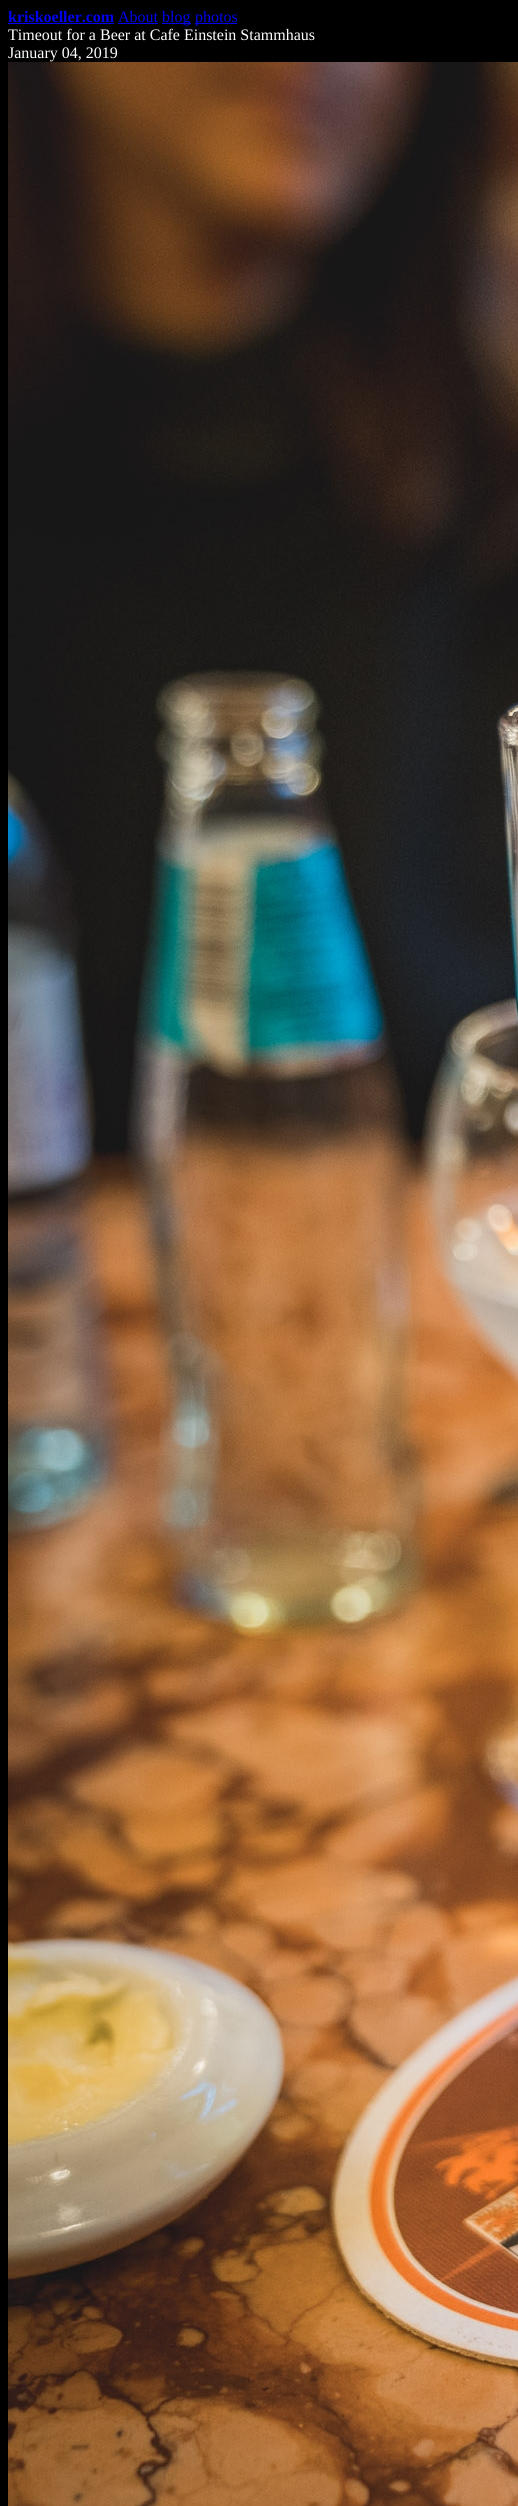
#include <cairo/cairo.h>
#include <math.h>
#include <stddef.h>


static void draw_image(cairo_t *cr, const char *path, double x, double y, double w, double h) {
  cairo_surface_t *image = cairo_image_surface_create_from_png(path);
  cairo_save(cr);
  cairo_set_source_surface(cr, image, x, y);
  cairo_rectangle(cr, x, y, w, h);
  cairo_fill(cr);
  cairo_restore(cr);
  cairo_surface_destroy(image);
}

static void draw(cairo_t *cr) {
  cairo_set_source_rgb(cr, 0, 0, 0);
  cairo_paint(cr);
  cairo_set_source_rgb(cr, 0, 0, 238 / 255.0);
  cairo_rectangle(cr, 8, 23, 106, 1);
  cairo_fill(cr);
  cairo_rectangle(cr, 118, 23, 40, 1);
  cairo_fill(cr);
  cairo_rectangle(cr, 162, 23, 29, 1);
  cairo_fill(cr);
  cairo_rectangle(cr, 195, 23, 42, 1);
  cairo_fill(cr);
  draw_image(cr, "images/1.png", 8, 62, 510, 2444);
  cairo_select_font_face(cr, "Liberation Serif", CAIRO_FONT_SLANT_NORMAL, CAIRO_FONT_WEIGHT_BOLD);
  cairo_set_font_size(cr, 16);
  cairo_move_to(cr, 8, 22);
  cairo_show_text(cr, "kriskoeller.com");
  cairo_select_font_face(cr, "Liberation Serif", CAIRO_FONT_SLANT_NORMAL, CAIRO_FONT_WEIGHT_NORMAL);
  cairo_move_to(cr, 118, 22);
  cairo_show_text(cr, "About");
  cairo_move_to(cr, 162, 22);
  cairo_show_text(cr, "blog");
  cairo_move_to(cr, 195, 22);
  cairo_show_text(cr, "photos");
  cairo_set_source_rgb(cr, 1, 1, 1);
  cairo_move_to(cr, 8, 40);
  cairo_show_text(cr, "Timeout for a Beer at Cafe Einstein Stammhaus");
  cairo_move_to(cr, 8, 58);
  cairo_show_text(cr, "January 04, 2019");
}

int main(void) {
  cairo_surface_t *surface = cairo_image_surface_create(CAIRO_FORMAT_RGB24, 518, 2506);
  cairo_t *cr = cairo_create(surface);
  cairo_font_options_t *options = cairo_font_options_create();
  cairo_font_options_set_hint_metrics(options, CAIRO_HINT_METRICS_OFF);
  cairo_font_options_set_hint_style(options, CAIRO_HINT_STYLE_NONE);
  cairo_set_font_options(cr, options);
  cairo_set_miter_limit(cr, 4);
  draw(cr);
  cairo_surface_write_to_png(surface, "out.png");
  cairo_font_options_destroy(options);
  cairo_destroy(cr);
  cairo_surface_destroy(surface);
  return 0;
}
